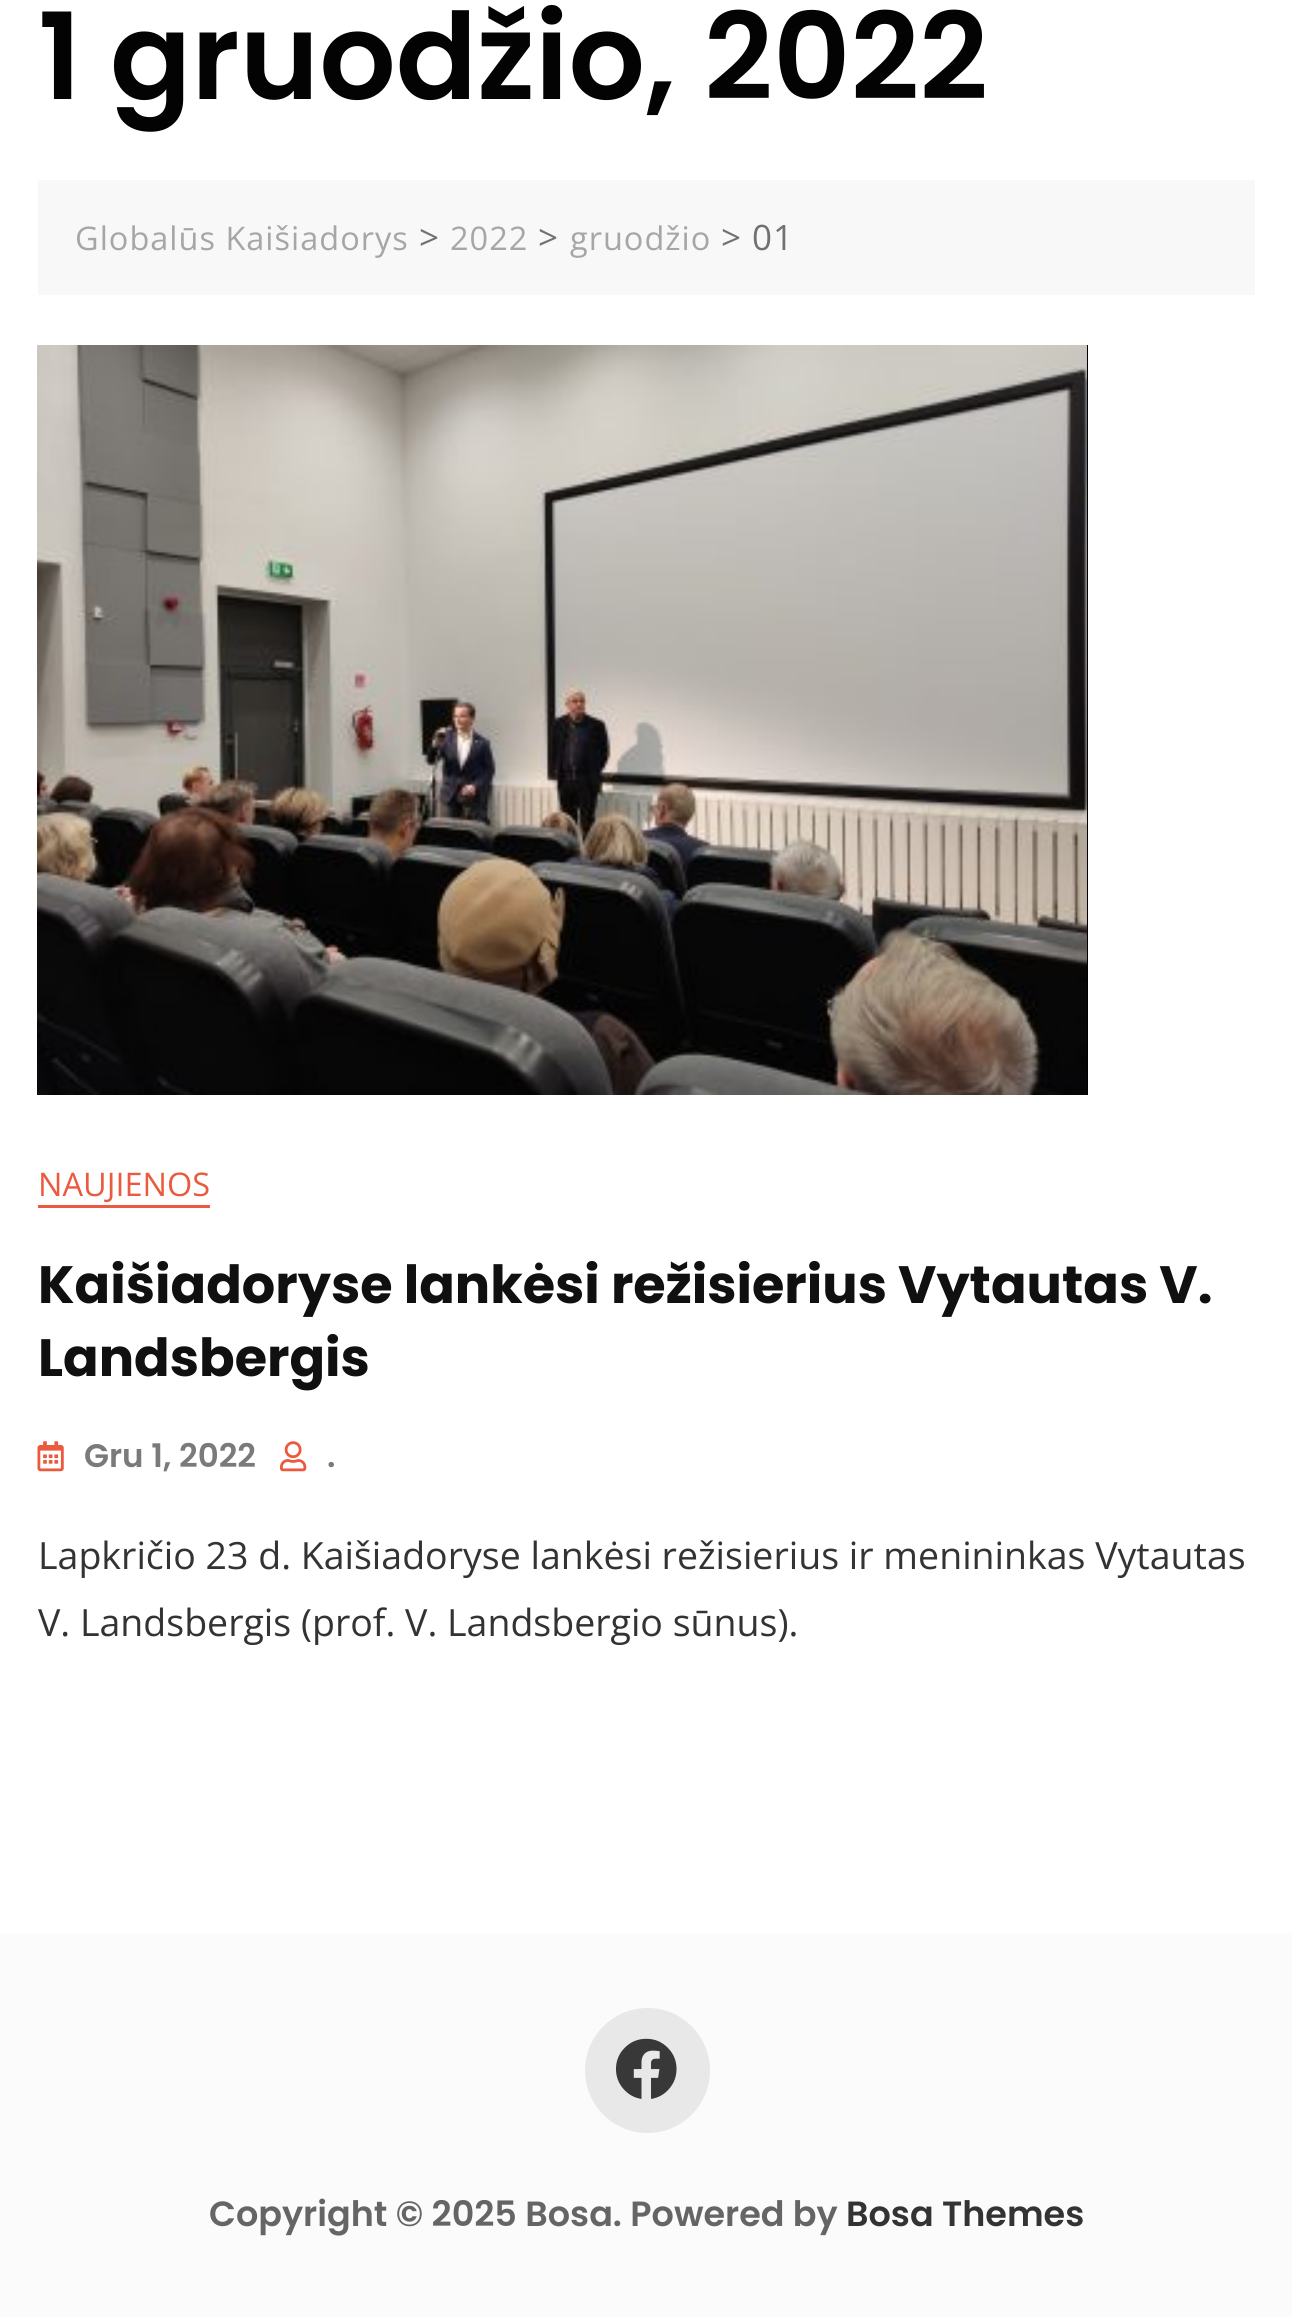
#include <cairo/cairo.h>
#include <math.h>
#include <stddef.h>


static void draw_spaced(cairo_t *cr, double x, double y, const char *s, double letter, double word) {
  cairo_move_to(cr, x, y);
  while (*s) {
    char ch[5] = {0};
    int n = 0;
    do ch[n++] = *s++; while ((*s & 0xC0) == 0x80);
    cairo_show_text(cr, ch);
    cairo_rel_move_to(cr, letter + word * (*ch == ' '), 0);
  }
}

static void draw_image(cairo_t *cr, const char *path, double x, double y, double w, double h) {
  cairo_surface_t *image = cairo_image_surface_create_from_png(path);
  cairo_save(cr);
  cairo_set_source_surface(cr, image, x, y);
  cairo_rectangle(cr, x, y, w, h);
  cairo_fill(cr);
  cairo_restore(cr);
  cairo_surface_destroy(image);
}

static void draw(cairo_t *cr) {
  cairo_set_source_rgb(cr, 1, 1, 1);
  cairo_paint(cr);
  cairo_set_source_rgb(cr, 248 / 255.0, 248 / 255.0, 248 / 255.0);
  cairo_rectangle(cr, 38, 180, 1217, 115);
  cairo_fill(cr);
  cairo_set_source_rgb(cr, 0, 0, 0);
  cairo_rectangle(cr, 1087, 345, 1, 750);
  cairo_fill(cr);
  draw_image(cr, "images/1.png", 37, 345, 1050, 750);
  cairo_set_source_rgb(cr, 235 / 255.0, 90 / 255.0, 62 / 255.0);
  cairo_rectangle(cr, 38, 1205, 172, 3);
  cairo_fill(cr);
  draw_image(cr, "images/2.png", 37, 1441, 27, 31);
  draw_image(cr, "images/3.png", 280, 1441, 27, 31);
  cairo_set_source_rgb(cr, 251 / 255.0, 251 / 255.0, 251 / 255.0);
  cairo_rectangle(cr, 0, 1933, 1292, 384);
  cairo_fill(cr);
  cairo_set_source_rgb(cr, 232 / 255.0, 232 / 255.0, 232 / 255.0);
  cairo_arc(cr, 647.5, 2070.5, 62.5, 0, 2 * M_PI);
  cairo_fill(cr);
  draw_image(cr, "images/4.png", 616, 2038, 61, 61);
  cairo_select_font_face(cr, "Poppins SemiBold", CAIRO_FONT_SLANT_NORMAL, CAIRO_FONT_WEIGHT_NORMAL);
  cairo_set_font_size(cr, 120);
  cairo_set_source_rgb(cr, 3 / 255.0, 3 / 255.0, 3 / 255.0);
  cairo_move_to(cr, 38, 99);
  cairo_show_text(cr, "1 gruodžio, 2022");
  cairo_select_font_face(cr, "Open Sans", CAIRO_FONT_SLANT_NORMAL, CAIRO_FONT_WEIGHT_NORMAL);
  cairo_set_font_size(cr, 32.5);
  cairo_set_source_rgb(cr, 166 / 255.0, 166 / 255.0, 166 / 255.0);
  draw_spaced(cr, 75, 250, "Globalūs Kaišiadorys", 1, 0);
  cairo_set_font_size(cr, 35);
  cairo_set_source_rgb(cr, 113 / 255.0, 113 / 255.0, 113 / 255.0);
  draw_spaced(cr, 419, 250, ">", 1, 0);
  cairo_set_font_size(cr, 32.5);
  cairo_set_source_rgb(cr, 166 / 255.0, 166 / 255.0, 166 / 255.0);
  draw_spaced(cr, 450, 250, "2022", 1, 0);
  cairo_set_font_size(cr, 35);
  cairo_set_source_rgb(cr, 113 / 255.0, 113 / 255.0, 113 / 255.0);
  draw_spaced(cr, 538, 250, ">", 1, 0);
  cairo_set_font_size(cr, 32.5);
  cairo_set_source_rgb(cr, 166 / 255.0, 166 / 255.0, 166 / 255.0);
  draw_spaced(cr, 570, 250, "gruodžio", 1, 0);
  cairo_set_font_size(cr, 35);
  cairo_set_source_rgb(cr, 113 / 255.0, 113 / 255.0, 113 / 255.0);
  draw_spaced(cr, 721, 250, "> 01", 1, 0);
  cairo_set_font_size(cr, 32.5);
  cairo_set_source_rgb(cr, 235 / 255.0, 90 / 255.0, 62 / 255.0);
  cairo_move_to(cr, 38, 1196);
  cairo_show_text(cr, "NAUJIENOS");
  cairo_select_font_face(cr, "Poppins", CAIRO_FONT_SLANT_NORMAL, CAIRO_FONT_WEIGHT_BOLD);
  cairo_set_font_size(cr, 52.5);
  cairo_set_source_rgb(cr, 16 / 255.0, 16 / 255.0, 16 / 255.0);
  cairo_move_to(cr, 38, 1303);
  cairo_show_text(cr, "Kaišiadoryse lankėsi režisierius Vytautas V.");
  cairo_move_to(cr, 38, 1376);
  cairo_show_text(cr, "Landsbergis");
  cairo_select_font_face(cr, "Poppins SemiBold", CAIRO_FONT_SLANT_NORMAL, CAIRO_FONT_WEIGHT_NORMAL);
  cairo_set_font_size(cr, 32.5);
  cairo_set_source_rgb(cr, 122 / 255.0, 122 / 255.0, 122 / 255.0);
  cairo_move_to(cr, 84, 1467);
  cairo_show_text(cr, "Gru 1, 2022");
  cairo_move_to(cr, 327, 1467);
  cairo_show_text(cr, ".");
  cairo_select_font_face(cr, "Open Sans", CAIRO_FONT_SLANT_NORMAL, CAIRO_FONT_WEIGHT_NORMAL);
  cairo_set_font_size(cr, 37.5);
  cairo_set_source_rgb(cr, 51 / 255.0, 51 / 255.0, 51 / 255.0);
  cairo_move_to(cr, 38, 1569);
  cairo_show_text(cr, "Lapkričio 23 d. Kaišiadoryse lankėsi režisierius ir menininkas Vytautas");
  cairo_move_to(cr, 38, 1636);
  cairo_show_text(cr, "V. Landsbergis (prof. V. Landsbergio sūnus).");
  cairo_select_font_face(cr, "Poppins SemiBold", CAIRO_FONT_SLANT_NORMAL, CAIRO_FONT_WEIGHT_NORMAL);
  cairo_set_font_size(cr, 35);
  cairo_set_source_rgb(cr, 101 / 255.0, 101 / 255.0, 101 / 255.0);
  cairo_move_to(cr, 209, 2226);
  cairo_show_text(cr, "Copyright © 2025 Bosa. Powered by");
  cairo_set_source_rgb(cr, 51 / 255.0, 51 / 255.0, 51 / 255.0);
  cairo_move_to(cr, 846, 2226);
  cairo_show_text(cr, "Bosa Themes");
}

int main(void) {
  cairo_surface_t *surface = cairo_image_surface_create(CAIRO_FORMAT_RGB24, 1292, 2317);
  cairo_t *cr = cairo_create(surface);
  cairo_font_options_t *options = cairo_font_options_create();
  cairo_font_options_set_hint_metrics(options, CAIRO_HINT_METRICS_OFF);
  cairo_font_options_set_hint_style(options, CAIRO_HINT_STYLE_NONE);
  cairo_set_font_options(cr, options);
  cairo_set_miter_limit(cr, 4);
  draw(cr);
  cairo_surface_write_to_png(surface, "out.png");
  cairo_font_options_destroy(options);
  cairo_destroy(cr);
  cairo_surface_destroy(surface);
  return 0;
}
